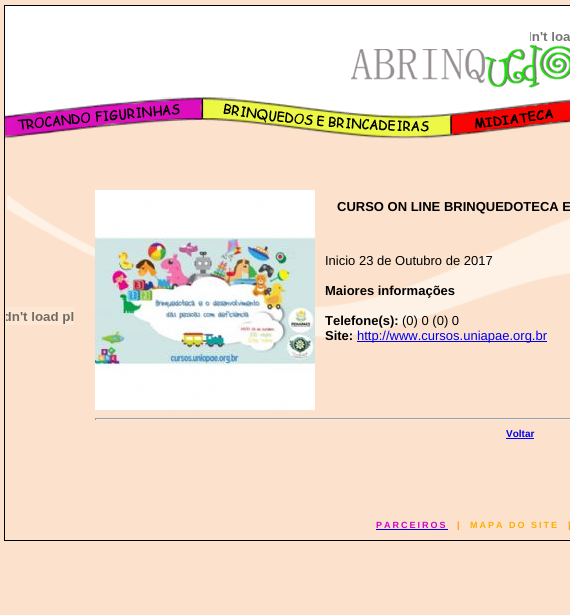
#include <cairo/cairo.h>
#include <math.h>
#include <stddef.h>


static void draw_spaced(cairo_t *cr, double x, double y, const char *s, double letter, double word) {
  cairo_move_to(cr, x, y);
  while (*s) {
    char ch[5] = {0};
    int n = 0;
    do ch[n++] = *s++; while ((*s & 0xC0) == 0x80);
    cairo_show_text(cr, ch);
    cairo_rel_move_to(cr, letter + word * (*ch == ' '), 0);
  }
}

static void draw_image(cairo_t *cr, const char *path, double x, double y, double w, double h) {
  cairo_surface_t *image = cairo_image_surface_create_from_png(path);
  cairo_save(cr);
  cairo_set_source_surface(cr, image, x, y);
  cairo_rectangle(cr, x, y, w, h);
  cairo_fill(cr);
  cairo_restore(cr);
  cairo_surface_destroy(image);
}

static void draw(cairo_t *cr) {
  cairo_set_source_rgb(cr, 252 / 255.0, 226 / 255.0, 204 / 255.0);
  cairo_paint(cr);
  cairo_set_source_rgb(cr, 0, 0, 0);
  cairo_rectangle(cr, 4, 5, 566, 536);
  cairo_fill(cr);
  cairo_set_source_rgb(cr, 1, 1, 1);
  cairo_rectangle(cr, 5, 6, 565, 89);
  cairo_fill(cr);
  draw_image(cr, "images/1.png", 351, 45, 219, 50);
  draw_image(cr, "images/2.png", 530, 32, 40, 9);
  cairo_set_source_rgb(cr, 252 / 255.0, 226 / 255.0, 204 / 255.0);
  cairo_rectangle(cr, 5, 137, 565, 3);
  cairo_fill(cr);
  draw_image(cr, "images/3.png", 5, 95, 196, 44);
  draw_image(cr, "images/4.png", 201, 95, 249, 44);
  draw_image(cr, "images/5.png", 450, 95, 120, 42);
  draw_image(cr, "images/6.png", 5, 140, 565, 400);
  draw_image(cr, "images/7.png", 6, 307, 68, 18);
  draw_image(cr, "images/8.png", 95, 190, 220, 220);
  cairo_set_source_rgb(cr, 0, 0, 238 / 255.0);
  cairo_rectangle(cr, 357, 341, 190, 1);
  cairo_fill(cr);
  cairo_set_source_rgb(cr, 159 / 255.0, 159 / 255.0, 159 / 255.0);
  cairo_rectangle(cr, 95, 418, 475, 1);
  cairo_fill(cr);
  cairo_set_source_rgb(cr, 238 / 255.0, 238 / 255.0, 238 / 255.0);
  cairo_rectangle(cr, 95, 419, 475, 1);
  cairo_fill(cr);
  cairo_set_source_rgb(cr, 159 / 255.0, 159 / 255.0, 159 / 255.0);
  cairo_rectangle(cr, 95, 418, 1, 2);
  cairo_fill(cr);
  cairo_set_source_rgb(cr, 0, 0, 238 / 255.0);
  cairo_rectangle(cr, 506, 438, 28, 1);
  cairo_fill(cr);
  cairo_rectangle(cr, 376, 529, 72, 1);
  cairo_fill(cr);
  cairo_select_font_face(cr, "Liberation Sans", CAIRO_FONT_SLANT_NORMAL, CAIRO_FONT_WEIGHT_BOLD);
  cairo_set_font_size(cr, 13);
  cairo_set_source_rgb(cr, 0, 0, 0);
  cairo_move_to(cr, 337, 211);
  cairo_show_text(cr, "CURSO ON LINE BRINQUEDOTECA E");
  cairo_select_font_face(cr, "Liberation Sans", CAIRO_FONT_SLANT_NORMAL, CAIRO_FONT_WEIGHT_NORMAL);
  cairo_move_to(cr, 325, 265);
  cairo_show_text(cr, "Inicio 23 de Outubro de 2017");
  cairo_select_font_face(cr, "Liberation Sans", CAIRO_FONT_SLANT_NORMAL, CAIRO_FONT_WEIGHT_BOLD);
  cairo_move_to(cr, 325, 295);
  cairo_show_text(cr, "Maiores informações");
  cairo_move_to(cr, 325, 325);
  cairo_show_text(cr, "Telefone(s):");
  cairo_select_font_face(cr, "Liberation Sans", CAIRO_FONT_SLANT_NORMAL, CAIRO_FONT_WEIGHT_NORMAL);
  cairo_move_to(cr, 402, 325);
  cairo_show_text(cr, "(0) 0 (0) 0");
  cairo_select_font_face(cr, "Liberation Sans", CAIRO_FONT_SLANT_NORMAL, CAIRO_FONT_WEIGHT_BOLD);
  cairo_move_to(cr, 325, 340);
  cairo_show_text(cr, "Site:");
  cairo_select_font_face(cr, "Liberation Sans", CAIRO_FONT_SLANT_NORMAL, CAIRO_FONT_WEIGHT_NORMAL);
  cairo_set_source_rgb(cr, 0, 0, 238 / 255.0);
  cairo_move_to(cr, 357, 340);
  cairo_show_text(cr, "http://www.cursos.uniapae.org.br");
  cairo_select_font_face(cr, "Liberation Sans", CAIRO_FONT_SLANT_NORMAL, CAIRO_FONT_WEIGHT_BOLD);
  cairo_set_font_size(cr, 10);
  cairo_move_to(cr, 506, 437);
  cairo_show_text(cr, "Voltar");
  cairo_set_font_size(cr, 9);
  cairo_set_source_rgb(cr, 204 / 255.0, 0, 204 / 255.0);
  draw_spaced(cr, 376, 528, "PARCEIROS", 2, 0);
  cairo_set_source_rgb(cr, 1, 153 / 255.0, 0);
  draw_spaced(cr, 457, 528, "|", 2, 0);
  cairo_set_source_rgb(cr, 253 / 255.0, 173 / 255.0, 3 / 255.0);
  draw_spaced(cr, 470, 528, "MAPA DO SITE", 2, 0);
  cairo_set_source_rgb(cr, 1, 153 / 255.0, 0);
  draw_spaced(cr, 568, 528, "|", 2, 0);
}

int main(void) {
  cairo_surface_t *surface = cairo_image_surface_create(CAIRO_FORMAT_RGB24, 570, 615);
  cairo_t *cr = cairo_create(surface);
  cairo_font_options_t *options = cairo_font_options_create();
  cairo_font_options_set_hint_metrics(options, CAIRO_HINT_METRICS_OFF);
  cairo_font_options_set_hint_style(options, CAIRO_HINT_STYLE_NONE);
  cairo_set_font_options(cr, options);
  cairo_set_miter_limit(cr, 4);
  draw(cr);
  cairo_surface_write_to_png(surface, "out.png");
  cairo_font_options_destroy(options);
  cairo_destroy(cr);
  cairo_surface_destroy(surface);
  return 0;
}
